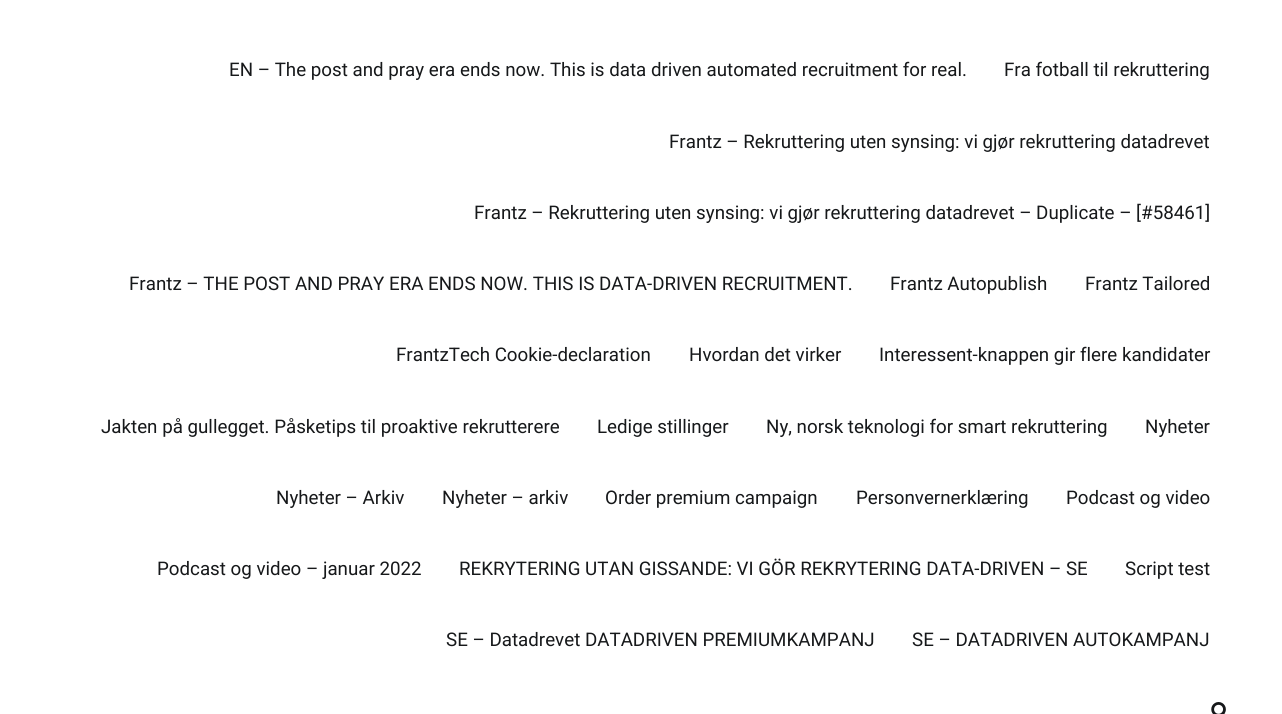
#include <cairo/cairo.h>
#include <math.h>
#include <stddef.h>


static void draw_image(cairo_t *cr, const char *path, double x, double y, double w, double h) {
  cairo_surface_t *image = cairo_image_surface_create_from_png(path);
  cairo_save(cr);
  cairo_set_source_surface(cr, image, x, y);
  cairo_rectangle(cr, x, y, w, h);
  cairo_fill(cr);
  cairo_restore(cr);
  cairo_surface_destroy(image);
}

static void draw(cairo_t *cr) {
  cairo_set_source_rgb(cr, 1, 1, 1);
  cairo_paint(cr);
  draw_image(cr, "images/1.png", 1211, 702, 15, 12);
  cairo_select_font_face(cr, "Roboto", CAIRO_FONT_SLANT_NORMAL, CAIRO_FONT_WEIGHT_NORMAL);
  cairo_set_font_size(cr, 18.75);
  cairo_set_source_rgb(cr, 22 / 255.0, 24 / 255.0, 26 / 255.0);
  cairo_move_to(cr, 229, 76);
  cairo_show_text(cr, "EN – The post and pray era ends now. This is data driven automated recruitment for real.");
  cairo_move_to(cr, 1004, 76);
  cairo_show_text(cr, "Fra fotball til rekruttering");
  cairo_move_to(cr, 669, 148);
  cairo_show_text(cr, "Frantz – Rekruttering uten synsing: vi gjør rekruttering datadrevet");
  cairo_move_to(cr, 474, 219);
  cairo_show_text(cr, "Frantz – Rekruttering uten synsing: vi gjør rekruttering datadrevet – Duplicate – [#58461]");
  cairo_move_to(cr, 129, 290);
  cairo_show_text(cr, "Frantz – THE POST AND PRAY ERA ENDS NOW. THIS IS DATA-DRIVEN RECRUITMENT.");
  cairo_move_to(cr, 890, 290);
  cairo_show_text(cr, "Frantz Autopublish");
  cairo_move_to(cr, 1085, 290);
  cairo_show_text(cr, "Frantz Tailored");
  cairo_move_to(cr, 396, 361);
  cairo_show_text(cr, "FrantzTech Cookie-declaration");
  cairo_move_to(cr, 689, 361);
  cairo_show_text(cr, "Hvordan det virker");
  cairo_move_to(cr, 879, 361);
  cairo_show_text(cr, "Interessent-knappen gir flere kandidater");
  cairo_move_to(cr, 101, 433);
  cairo_show_text(cr, "Jakten på gullegget. Påsketips til proaktive rekrutterere");
  cairo_move_to(cr, 597, 433);
  cairo_show_text(cr, "Ledige stillinger");
  cairo_move_to(cr, 766, 433);
  cairo_show_text(cr, "Ny, norsk teknologi for smart rekruttering");
  cairo_move_to(cr, 1145, 433);
  cairo_show_text(cr, "Nyheter");
  cairo_move_to(cr, 276, 504);
  cairo_show_text(cr, "Nyheter – Arkiv");
  cairo_move_to(cr, 442, 504);
  cairo_show_text(cr, "Nyheter – arkiv");
  cairo_move_to(cr, 605, 504);
  cairo_show_text(cr, "Order premium campaign");
  cairo_move_to(cr, 856, 504);
  cairo_show_text(cr, "Personvernerklæring");
  cairo_move_to(cr, 1066, 504);
  cairo_show_text(cr, "Podcast og video");
  cairo_move_to(cr, 157, 575);
  cairo_show_text(cr, "Podcast og video – januar 2022");
  cairo_move_to(cr, 459, 575);
  cairo_show_text(cr, "REKRYTERING UTAN GISSANDE: VI GÖR REKRYTERING DATA-DRIVEN – SE");
  cairo_move_to(cr, 1125, 575);
  cairo_show_text(cr, "Script test");
  cairo_move_to(cr, 446, 646);
  cairo_show_text(cr, "SE – Datadrevet DATADRIVEN PREMIUMKAMPANJ");
  cairo_move_to(cr, 912, 646);
  cairo_show_text(cr, "SE – DATADRIVEN AUTOKAMPANJ");
}

int main(void) {
  cairo_surface_t *surface = cairo_image_surface_create(CAIRO_FORMAT_RGB24, 1282, 714);
  cairo_t *cr = cairo_create(surface);
  cairo_font_options_t *options = cairo_font_options_create();
  cairo_font_options_set_hint_metrics(options, CAIRO_HINT_METRICS_OFF);
  cairo_font_options_set_hint_style(options, CAIRO_HINT_STYLE_NONE);
  cairo_set_font_options(cr, options);
  cairo_set_miter_limit(cr, 4);
  draw(cr);
  cairo_surface_write_to_png(surface, "out.png");
  cairo_font_options_destroy(options);
  cairo_destroy(cr);
  cairo_surface_destroy(surface);
  return 0;
}
